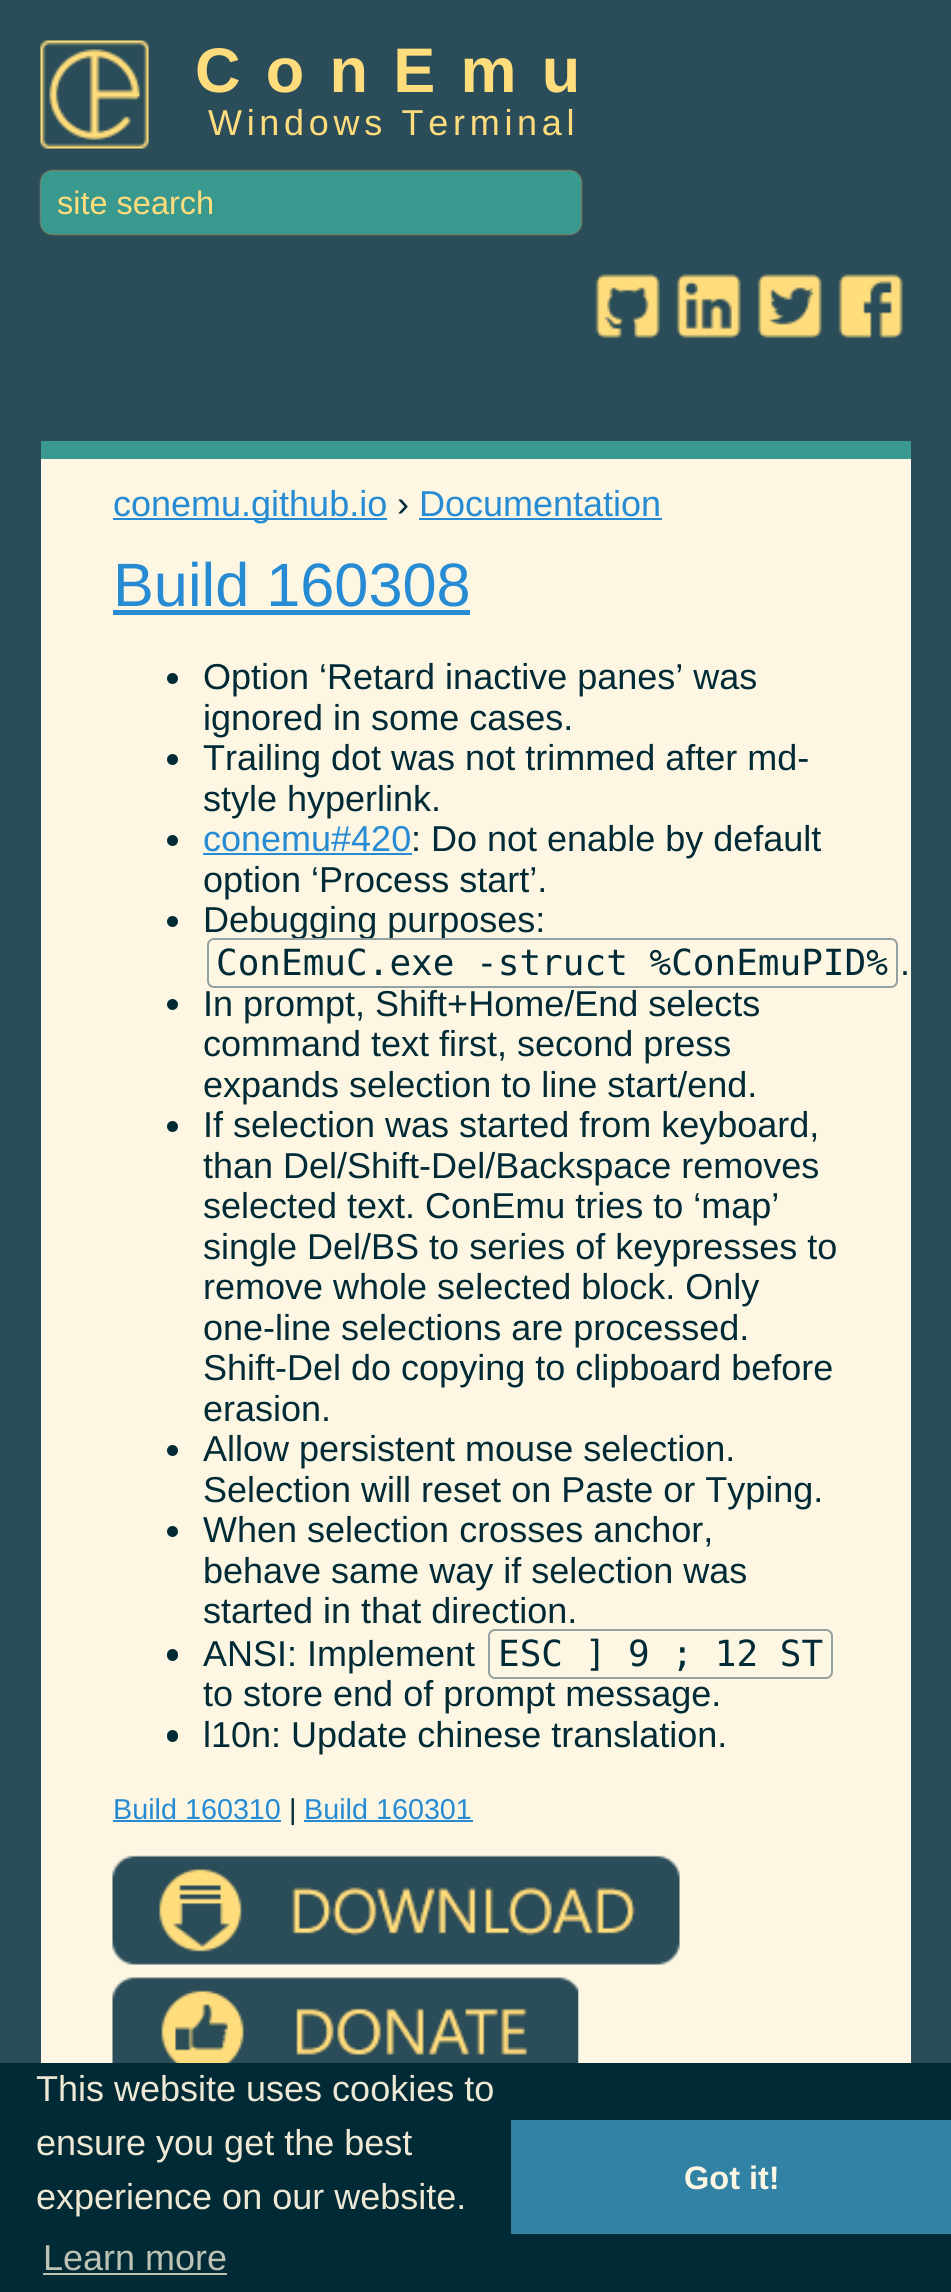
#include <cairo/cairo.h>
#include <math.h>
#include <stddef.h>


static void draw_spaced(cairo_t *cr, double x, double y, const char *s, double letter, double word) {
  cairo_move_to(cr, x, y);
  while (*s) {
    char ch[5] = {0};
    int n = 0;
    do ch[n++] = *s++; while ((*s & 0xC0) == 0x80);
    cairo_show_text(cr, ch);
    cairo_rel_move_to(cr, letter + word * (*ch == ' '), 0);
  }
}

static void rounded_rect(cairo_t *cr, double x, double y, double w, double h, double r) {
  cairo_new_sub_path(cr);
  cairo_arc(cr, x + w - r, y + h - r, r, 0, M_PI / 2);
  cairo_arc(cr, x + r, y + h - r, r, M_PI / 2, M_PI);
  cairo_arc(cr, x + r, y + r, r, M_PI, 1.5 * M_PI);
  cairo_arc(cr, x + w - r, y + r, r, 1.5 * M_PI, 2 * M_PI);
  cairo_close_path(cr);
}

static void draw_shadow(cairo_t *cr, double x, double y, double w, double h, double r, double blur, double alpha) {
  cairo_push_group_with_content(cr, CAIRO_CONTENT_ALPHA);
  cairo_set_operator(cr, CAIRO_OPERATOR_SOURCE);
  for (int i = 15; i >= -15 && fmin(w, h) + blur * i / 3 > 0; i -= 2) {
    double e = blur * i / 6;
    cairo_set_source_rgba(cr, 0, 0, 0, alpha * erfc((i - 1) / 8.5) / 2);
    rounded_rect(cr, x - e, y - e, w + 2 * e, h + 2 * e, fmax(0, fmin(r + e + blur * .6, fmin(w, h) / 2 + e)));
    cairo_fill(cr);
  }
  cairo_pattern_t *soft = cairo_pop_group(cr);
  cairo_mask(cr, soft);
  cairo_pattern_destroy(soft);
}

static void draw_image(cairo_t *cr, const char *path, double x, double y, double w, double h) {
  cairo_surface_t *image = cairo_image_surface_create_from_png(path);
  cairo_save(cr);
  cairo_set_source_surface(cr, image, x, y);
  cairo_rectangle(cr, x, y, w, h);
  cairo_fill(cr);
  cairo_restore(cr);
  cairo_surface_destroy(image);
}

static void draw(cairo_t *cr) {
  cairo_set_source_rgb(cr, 43 / 255.0, 77 / 255.0, 89 / 255.0);
  cairo_paint(cr);
  draw_image(cr, "images/1.png", 40, 40, 109, 109);
  cairo_set_source_rgb(cr, 1, 220 / 255.0, 124 / 255.0);
  draw_shadow(cr, 41, 171, 540, 63, 11, 1, 1);
  cairo_set_source_rgb(cr, 57 / 255.0, 153 / 255.0, 142 / 255.0);
  rounded_rect(cr, 41, 171, 540, 63, 11);
  cairo_fill(cr);
  draw_image(cr, "images/2.png", 595, 274, 65, 65);
  draw_image(cr, "images/3.png", 676, 274, 65, 65);
  draw_image(cr, "images/4.png", 757, 274, 65, 65);
  draw_image(cr, "images/5.png", 838, 274, 65, 65);
  cairo_set_source_rgb(cr, 253 / 255.0, 246 / 255.0, 227 / 255.0);
  cairo_rectangle(cr, 41, 459, 870, 1604);
  cairo_fill(cr);
  cairo_set_source_rgb(cr, 57 / 255.0, 153 / 255.0, 142 / 255.0);
  cairo_rectangle(cr, 41, 441, 870, 18);
  cairo_fill(cr);
  cairo_set_source_rgb(cr, 38 / 255.0, 139 / 255.0, 210 / 255.0);
  cairo_rectangle(cr, 113, 518, 274, 2);
  cairo_fill(cr);
  cairo_rectangle(cr, 419, 518, 243, 2);
  cairo_fill(cr);
  cairo_rectangle(cr, 113, 610, 357, 5);
  cairo_fill(cr);
  cairo_set_source_rgb(cr, 0, 43 / 255.0, 54 / 255.0);
  cairo_arc(cr, 172.5, 678.5, 5.5, 0, 2 * M_PI);
  cairo_fill(cr);
  cairo_arc(cr, 172.5, 759.5, 5.5, 0, 2 * M_PI);
  cairo_fill(cr);
  cairo_arc(cr, 172.5, 840.5, 5.5, 0, 2 * M_PI);
  cairo_fill(cr);
  cairo_set_source_rgb(cr, 38 / 255.0, 139 / 255.0, 210 / 255.0);
  cairo_rectangle(cr, 203, 853, 209, 2);
  cairo_fill(cr);
  cairo_set_source_rgb(cr, 0, 43 / 255.0, 54 / 255.0);
  cairo_arc(cr, 172.5, 921.5, 5.5, 0, 2 * M_PI);
  cairo_fill(cr);
  cairo_arc(cr, 172.5, 1004.5, 5.5, 0, 2 * M_PI);
  cairo_fill(cr);
  cairo_arc(cr, 172.5, 1126.5, 5.5, 0, 2 * M_PI);
  cairo_fill(cr);
  cairo_arc(cr, 172.5, 1450.5, 5.5, 0, 2 * M_PI);
  cairo_fill(cr);
  cairo_arc(cr, 172.5, 1531.5, 5.5, 0, 2 * M_PI);
  cairo_fill(cr);
  rounded_rect(cr, 167, 1649, 11, 12, 5.5);
  cairo_fill(cr);
  rounded_rect(cr, 489, 1630, 343, 48, 6);
  cairo_set_source_rgb(cr, 147 / 255.0, 161 / 255.0, 161 / 255.0);
  cairo_stroke(cr);
  cairo_set_source_rgb(cr, 0, 43 / 255.0, 54 / 255.0);
  rounded_rect(cr, 167, 1730, 11, 12, 5.5);
  cairo_fill(cr);
  cairo_set_source_rgb(cr, 38 / 255.0, 139 / 255.0, 210 / 255.0);
  cairo_rectangle(cr, 113, 1820, 168, 2);
  cairo_fill(cr);
  cairo_rectangle(cr, 304, 1820, 169, 2);
  cairo_fill(cr);
  draw_image(cr, "images/6.png", 112, 1855, 568, 110);
  draw_image(cr, "images/7.png", 112, 1977, 467, 86);
  cairo_set_source_rgb(cr, 0, 43 / 255.0, 54 / 255.0);
  cairo_rectangle(cr, 0, 2063, 951, 229);
  cairo_fill(cr);
  cairo_set_source_rgb(cr, 190 / 255.0, 194 / 255.0, 181 / 255.0);
  cairo_rectangle(cr, 43, 2273, 184, 2);
  cairo_fill(cr);
  cairo_set_source_rgb(cr, 49 / 255.0, 130 / 255.0, 164 / 255.0);
  cairo_rectangle(cr, 511, 2120, 440, 114);
  cairo_fill(cr);
  cairo_select_font_face(cr, "Liberation Sans", CAIRO_FONT_SLANT_NORMAL, CAIRO_FONT_WEIGHT_BOLD);
  cairo_set_font_size(cr, 63);
  cairo_set_source_rgb(cr, 1, 220 / 255.0, 124 / 255.0);
  draw_spaced(cr, 195, 92, "ConEmu", 25.25, 0);
  cairo_select_font_face(cr, "Liberation Sans", CAIRO_FONT_SLANT_NORMAL, CAIRO_FONT_WEIGHT_NORMAL);
  cairo_set_font_size(cr, 36);
  draw_spaced(cr, 208, 135, "Windows Terminal", 4.7, 0);
  cairo_set_font_size(cr, 32.5);
  cairo_move_to(cr, 57, 214);
  cairo_show_text(cr, "site search");
  cairo_set_font_size(cr, 36);
  cairo_set_source_rgb(cr, 38 / 255.0, 139 / 255.0, 210 / 255.0);
  cairo_move_to(cr, 113, 516);
  cairo_show_text(cr, "conemu.github.io");
  cairo_set_source_rgb(cr, 0, 43 / 255.0, 54 / 255.0);
  cairo_move_to(cr, 397, 516);
  cairo_show_text(cr, "›");
  cairo_set_source_rgb(cr, 38 / 255.0, 139 / 255.0, 210 / 255.0);
  cairo_move_to(cr, 419, 516);
  cairo_show_text(cr, "Documentation");
  cairo_set_font_size(cr, 61.25);
  cairo_move_to(cr, 113, 606);
  cairo_show_text(cr, "Build 160308");
  cairo_set_font_size(cr, 36);
  cairo_set_source_rgb(cr, 0, 43 / 255.0, 54 / 255.0);
  cairo_move_to(cr, 203, 689);
  cairo_show_text(cr, "Option ‘Retard inactive panes’ was");
  cairo_move_to(cr, 203, 730);
  cairo_show_text(cr, "ignored in some cases.");
  cairo_move_to(cr, 203, 770);
  cairo_show_text(cr, "Trailing dot was not trimmed after md-");
  cairo_move_to(cr, 203, 811);
  cairo_show_text(cr, "style hyperlink.");
  cairo_set_source_rgb(cr, 38 / 255.0, 139 / 255.0, 210 / 255.0);
  cairo_move_to(cr, 203, 851);
  cairo_show_text(cr, "conemu#420");
  cairo_set_source_rgb(cr, 0, 43 / 255.0, 54 / 255.0);
  cairo_move_to(cr, 411, 851);
  cairo_show_text(cr, ": Do not enable by default");
  cairo_move_to(cr, 203, 892);
  cairo_show_text(cr, "option ‘Process start’.");
  cairo_move_to(cr, 203, 932);
  cairo_show_text(cr, "Debugging purposes:");
  rounded_rect(cr, 208, 939, 689, 48, 6);
  cairo_set_source_rgb(cr, 147 / 255.0, 161 / 255.0, 161 / 255.0);
  cairo_stroke(cr);
  cairo_select_font_face(cr, "DejaVu Sans Mono", CAIRO_FONT_SLANT_NORMAL, CAIRO_FONT_WEIGHT_NORMAL);
  cairo_set_source_rgb(cr, 0, 43 / 255.0, 54 / 255.0);
  cairo_move_to(cr, 216, 975);
  cairo_show_text(cr, "ConEmuC.exe -struct %ConEmuPID%");
  cairo_select_font_face(cr, "Liberation Sans", CAIRO_FONT_SLANT_NORMAL, CAIRO_FONT_WEIGHT_NORMAL);
  cairo_move_to(cr, 900, 975);
  cairo_show_text(cr, ".");
  cairo_move_to(cr, 203, 1016);
  cairo_show_text(cr, "In prompt, Shift+Home/End selects");
  cairo_move_to(cr, 203, 1056);
  cairo_show_text(cr, "command text first, second press");
  cairo_move_to(cr, 203, 1097);
  cairo_show_text(cr, "expands selection to line start/end.");
  cairo_move_to(cr, 203, 1137);
  cairo_show_text(cr, "If selection was started from keyboard,");
  cairo_move_to(cr, 203, 1178);
  cairo_show_text(cr, "than Del/Shift-Del/Backspace removes");
  cairo_move_to(cr, 203, 1218);
  cairo_show_text(cr, "selected text. ConEmu tries to ‘map’");
  cairo_move_to(cr, 203, 1259);
  cairo_show_text(cr, "single Del/BS to series of keypresses to");
  cairo_move_to(cr, 203, 1299);
  cairo_show_text(cr, "remove whole selected block. Only");
  cairo_move_to(cr, 203, 1340);
  cairo_show_text(cr, "one-line selections are processed.");
  cairo_move_to(cr, 203, 1380);
  cairo_show_text(cr, "Shift-Del do copying to clipboard before");
  cairo_move_to(cr, 203, 1421);
  cairo_show_text(cr, "erasion.");
  cairo_move_to(cr, 203, 1461);
  cairo_show_text(cr, "Allow persistent mouse selection.");
  cairo_move_to(cr, 203, 1502);
  cairo_show_text(cr, "Selection will reset on Paste or Typing.");
  cairo_move_to(cr, 203, 1542);
  cairo_show_text(cr, "When selection crosses anchor,");
  cairo_move_to(cr, 203, 1583);
  cairo_show_text(cr, "behave same way if selection was");
  cairo_move_to(cr, 203, 1623);
  cairo_show_text(cr, "started in that direction.");
  cairo_move_to(cr, 203, 1666);
  cairo_show_text(cr, "ANSI: Implement");
  cairo_select_font_face(cr, "DejaVu Sans Mono", CAIRO_FONT_SLANT_NORMAL, CAIRO_FONT_WEIGHT_NORMAL);
  cairo_move_to(cr, 498, 1666);
  cairo_show_text(cr, "ESC ] 9 ; 12 ST");
  cairo_select_font_face(cr, "Liberation Sans", CAIRO_FONT_SLANT_NORMAL, CAIRO_FONT_WEIGHT_NORMAL);
  cairo_move_to(cr, 203, 1706);
  cairo_show_text(cr, "to store end of prompt message.");
  cairo_move_to(cr, 203, 1747);
  cairo_show_text(cr, "l10n: Update chinese translation.");
  cairo_set_font_size(cr, 28.75);
  cairo_set_source_rgb(cr, 38 / 255.0, 139 / 255.0, 210 / 255.0);
  cairo_move_to(cr, 113, 1819);
  cairo_show_text(cr, "Build 160310");
  cairo_set_source_rgb(cr, 0, 43 / 255.0, 54 / 255.0);
  cairo_move_to(cr, 289, 1819);
  cairo_show_text(cr, "|");
  cairo_set_source_rgb(cr, 38 / 255.0, 139 / 255.0, 210 / 255.0);
  cairo_move_to(cr, 304, 1819);
  cairo_show_text(cr, "Build 160301");
  cairo_set_font_size(cr, 36);
  cairo_set_source_rgb(cr, 238 / 255.0, 232 / 255.0, 213 / 255.0);
  cairo_move_to(cr, 36, 2101);
  cairo_show_text(cr, "This website uses cookies to");
  cairo_move_to(cr, 36, 2155);
  cairo_show_text(cr, "ensure you get the best");
  cairo_move_to(cr, 36, 2209);
  cairo_show_text(cr, "experience on our website.");
  cairo_set_source_rgb(cr, 190 / 255.0, 194 / 255.0, 181 / 255.0);
  cairo_move_to(cr, 43, 2270);
  cairo_show_text(cr, "Learn more");
  cairo_select_font_face(cr, "Liberation Sans", CAIRO_FONT_SLANT_NORMAL, CAIRO_FONT_WEIGHT_BOLD);
  cairo_set_font_size(cr, 32.5);
  cairo_set_source_rgb(cr, 253 / 255.0, 246 / 255.0, 227 / 255.0);
  cairo_move_to(cr, 684, 2189);
  cairo_show_text(cr, "Got it!");
}

int main(void) {
  cairo_surface_t *surface = cairo_image_surface_create(CAIRO_FORMAT_RGB24, 951, 2292);
  cairo_t *cr = cairo_create(surface);
  cairo_font_options_t *options = cairo_font_options_create();
  cairo_font_options_set_hint_metrics(options, CAIRO_HINT_METRICS_OFF);
  cairo_font_options_set_hint_style(options, CAIRO_HINT_STYLE_NONE);
  cairo_set_font_options(cr, options);
  cairo_set_miter_limit(cr, 4);
  draw(cr);
  cairo_surface_write_to_png(surface, "out.png");
  cairo_font_options_destroy(options);
  cairo_destroy(cr);
  cairo_surface_destroy(surface);
  return 0;
}
